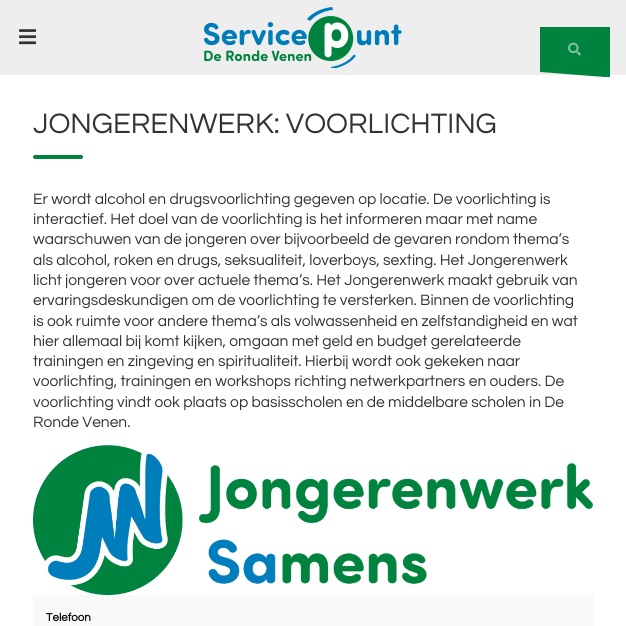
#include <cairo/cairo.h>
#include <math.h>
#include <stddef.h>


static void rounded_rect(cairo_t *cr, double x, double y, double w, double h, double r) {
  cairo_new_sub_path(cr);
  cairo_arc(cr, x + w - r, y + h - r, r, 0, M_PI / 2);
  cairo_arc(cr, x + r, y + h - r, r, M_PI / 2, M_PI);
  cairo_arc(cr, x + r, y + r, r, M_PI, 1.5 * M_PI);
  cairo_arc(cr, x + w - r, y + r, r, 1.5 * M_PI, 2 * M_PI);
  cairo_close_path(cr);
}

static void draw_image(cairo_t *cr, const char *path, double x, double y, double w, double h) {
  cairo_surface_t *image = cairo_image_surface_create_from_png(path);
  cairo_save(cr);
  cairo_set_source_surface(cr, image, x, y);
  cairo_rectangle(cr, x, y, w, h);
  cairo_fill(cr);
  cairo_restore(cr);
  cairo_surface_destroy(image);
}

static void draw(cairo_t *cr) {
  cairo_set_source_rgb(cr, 1, 1, 1);
  cairo_paint(cr);
  cairo_set_source_rgb(cr, 238 / 255.0, 238 / 255.0, 238 / 255.0);
  cairo_rectangle(cr, 0, 0, 626, 75);
  cairo_fill(cr);
  draw_image(cr, "images/1.png", 19, 29, 18, 16);
  draw_image(cr, "images/2.png", 204, 7, 198, 61);
  cairo_set_source_rgb(cr, 0, 131 / 255.0, 62 / 255.0);
  cairo_new_path(cr);
  cairo_move_to(cr, 540, 72);
  cairo_line_to(cr, 540, 27);
  cairo_line_to(cr, 610, 27);
  cairo_line_to(cr, 610, 77);
  cairo_line_to(cr, 604, 77);
  cairo_close_path(cr);
  cairo_fill(cr);
  draw_image(cr, "images/3.png", 568, 42, 13, 14);
  rounded_rect(cr, 33, 155, 50, 4, 2);
  cairo_fill(cr);
  draw_image(cr, "images/4.png", 33, 445, 561, 150);
  cairo_set_source_rgb(cr, 249 / 255.0, 249 / 255.0, 249 / 255.0);
  cairo_rectangle(cr, 33, 595, 561, 31);
  cairo_fill(cr);
  cairo_select_font_face(cr, "Questrial", CAIRO_FONT_SLANT_NORMAL, CAIRO_FONT_WEIGHT_NORMAL);
  cairo_set_font_size(cr, 29.25);
  cairo_set_source_rgb(cr, 51 / 255.0, 51 / 255.0, 51 / 255.0);
  cairo_move_to(cr, 33, 133);
  cairo_show_text(cr, "JONGERENWERK: VOORLICHTING");
  cairo_set_font_size(cr, 15.6);
  cairo_move_to(cr, 33, 204);
  cairo_show_text(cr, "Er wordt alcohol en drugsvoorlichting gegeven op locatie. De voorlichting is");
  cairo_move_to(cr, 33, 224);
  cairo_show_text(cr, "interactief. Het doel van de voorlichting is het informeren maar met name");
  cairo_move_to(cr, 33, 244);
  cairo_show_text(cr, "waarschuwen van de jongeren over bijvoorbeeld de gevaren rondom thema’s");
  cairo_move_to(cr, 33, 265);
  cairo_show_text(cr, "als alcohol, roken en drugs, seksualiteit, loverboys, sexting. Het Jongerenwerk");
  cairo_move_to(cr, 33, 285);
  cairo_show_text(cr, "licht jongeren voor over actuele thema’s. Het Jongerenwerk maakt gebruik van");
  cairo_move_to(cr, 33, 305);
  cairo_show_text(cr, "ervaringsdeskundigen om de voorlichting te versterken. Binnen de voorlichting");
  cairo_move_to(cr, 33, 326);
  cairo_show_text(cr, "is ook ruimte voor andere thema’s als volwassenheid en zelfstandigheid en wat");
  cairo_move_to(cr, 33, 346);
  cairo_show_text(cr, "hier allemaal bij komt kijken, omgaan met geld en budget gerelateerde");
  cairo_move_to(cr, 33, 366);
  cairo_show_text(cr, "trainingen en zingeving en spiritualiteit. Hierbij wordt ook gekeken naar");
  cairo_move_to(cr, 33, 386);
  cairo_show_text(cr, "voorlichting, trainingen en workshops richting netwerkpartners en ouders. De");
  cairo_move_to(cr, 33, 407);
  cairo_show_text(cr, "voorlichting vindt ook plaats op basisscholen en de middelbare scholen in De");
  cairo_move_to(cr, 33, 427);
  cairo_show_text(cr, "Ronde Venen.");
  cairo_select_font_face(cr, "Questrial", CAIRO_FONT_SLANT_NORMAL, CAIRO_FONT_WEIGHT_BOLD);
  cairo_set_font_size(cr, 11.5);
  cairo_set_source_rgb(cr, 10 / 255.0, 10 / 255.0, 10 / 255.0);
  cairo_move_to(cr, 46, 621);
  cairo_show_text(cr, "Telefoon");
}

int main(void) {
  cairo_surface_t *surface = cairo_image_surface_create(CAIRO_FORMAT_RGB24, 626, 626);
  cairo_t *cr = cairo_create(surface);
  cairo_font_options_t *options = cairo_font_options_create();
  cairo_font_options_set_hint_metrics(options, CAIRO_HINT_METRICS_OFF);
  cairo_font_options_set_hint_style(options, CAIRO_HINT_STYLE_NONE);
  cairo_set_font_options(cr, options);
  cairo_set_miter_limit(cr, 4);
  draw(cr);
  cairo_surface_write_to_png(surface, "out.png");
  cairo_font_options_destroy(options);
  cairo_destroy(cr);
  cairo_surface_destroy(surface);
  return 0;
}
